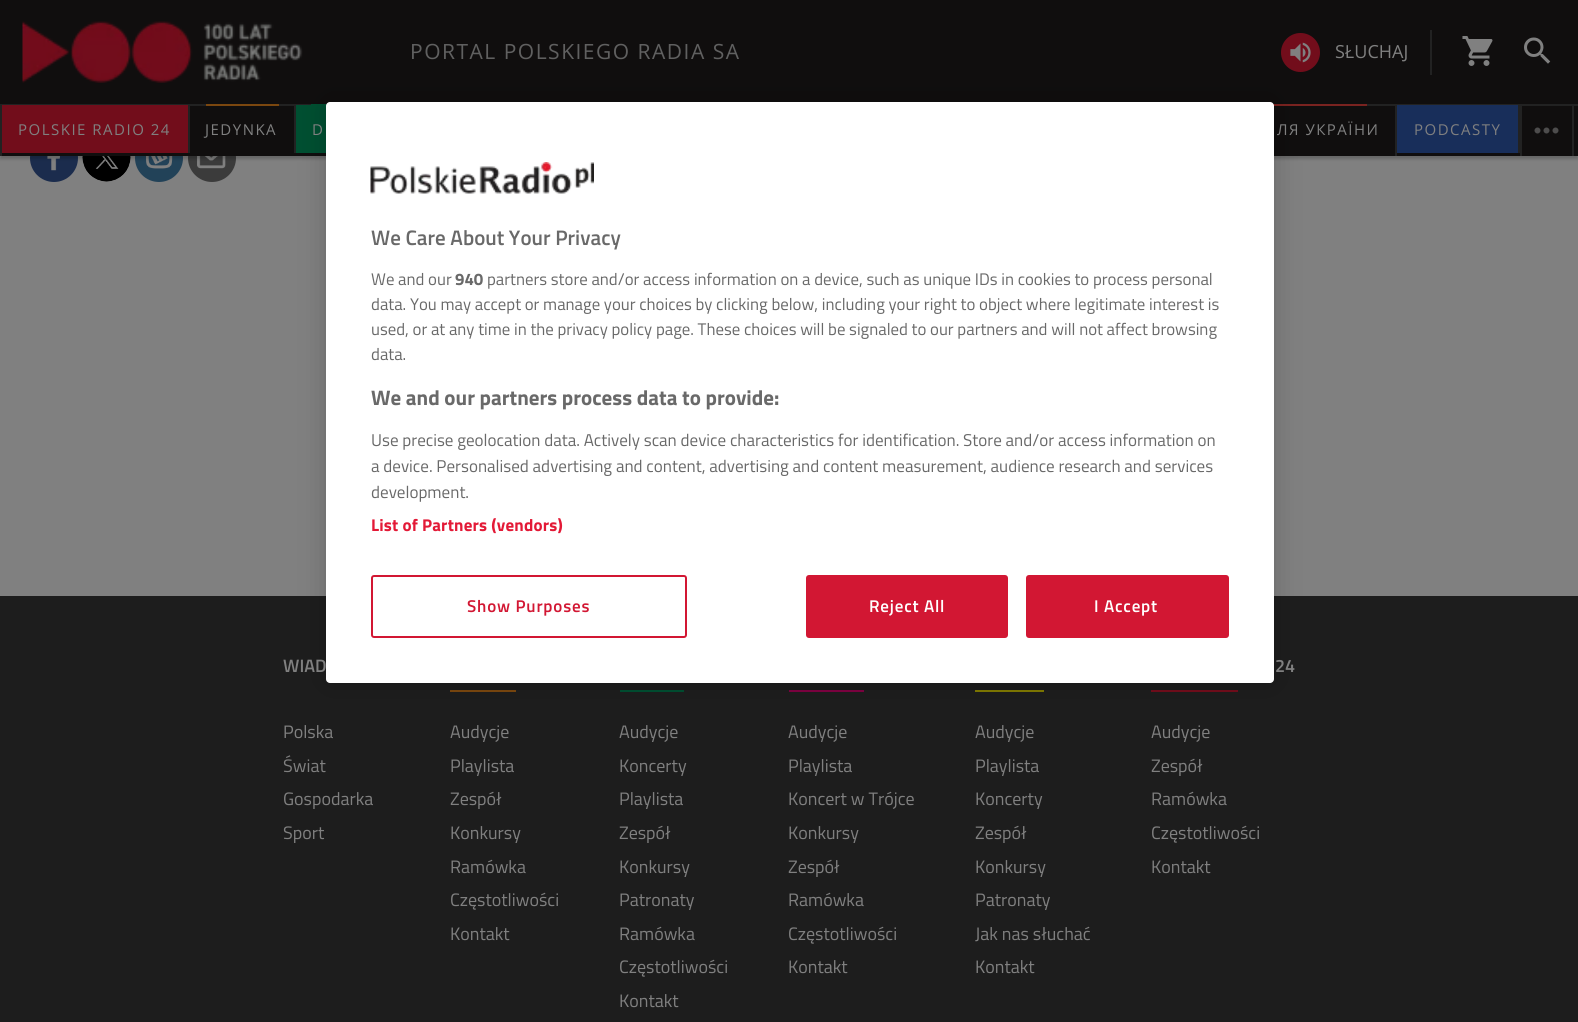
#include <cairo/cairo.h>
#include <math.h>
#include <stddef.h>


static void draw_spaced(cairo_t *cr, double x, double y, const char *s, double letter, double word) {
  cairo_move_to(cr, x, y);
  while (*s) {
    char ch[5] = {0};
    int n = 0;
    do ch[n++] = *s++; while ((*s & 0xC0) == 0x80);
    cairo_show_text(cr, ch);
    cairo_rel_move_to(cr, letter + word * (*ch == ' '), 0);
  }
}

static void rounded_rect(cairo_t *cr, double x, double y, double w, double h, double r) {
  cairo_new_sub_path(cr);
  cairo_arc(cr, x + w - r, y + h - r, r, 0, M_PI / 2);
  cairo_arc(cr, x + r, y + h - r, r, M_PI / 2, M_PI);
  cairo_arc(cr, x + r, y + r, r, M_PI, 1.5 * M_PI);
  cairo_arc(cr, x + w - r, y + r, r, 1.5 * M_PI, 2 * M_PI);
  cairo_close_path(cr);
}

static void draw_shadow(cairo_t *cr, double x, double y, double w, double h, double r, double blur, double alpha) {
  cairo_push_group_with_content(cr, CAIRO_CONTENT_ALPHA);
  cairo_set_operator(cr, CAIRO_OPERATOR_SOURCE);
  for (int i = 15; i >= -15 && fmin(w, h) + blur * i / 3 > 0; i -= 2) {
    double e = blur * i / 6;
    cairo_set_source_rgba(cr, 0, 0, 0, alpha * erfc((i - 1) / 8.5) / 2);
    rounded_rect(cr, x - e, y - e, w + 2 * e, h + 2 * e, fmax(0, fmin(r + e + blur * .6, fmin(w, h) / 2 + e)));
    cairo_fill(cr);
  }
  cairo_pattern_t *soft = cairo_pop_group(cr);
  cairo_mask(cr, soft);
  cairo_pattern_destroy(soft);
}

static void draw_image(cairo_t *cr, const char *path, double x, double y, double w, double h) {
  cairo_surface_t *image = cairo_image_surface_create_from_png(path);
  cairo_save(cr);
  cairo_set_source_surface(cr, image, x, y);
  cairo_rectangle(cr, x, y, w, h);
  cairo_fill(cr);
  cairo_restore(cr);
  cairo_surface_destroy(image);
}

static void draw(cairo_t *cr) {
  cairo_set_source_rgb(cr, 29 / 255.0, 29 / 255.0, 29 / 255.0);
  cairo_paint(cr);
  cairo_set_source_rgb(cr, 128 / 255.0, 128 / 255.0, 128 / 255.0);
  cairo_rectangle(cr, 0, 156, 1578, 440);
  cairo_fill(cr);
  cairo_set_source_rgb(cr, 27 / 255.0, 44 / 255.0, 77 / 255.0);
  cairo_arc(cr, 54, 158, 24, 0, 2 * M_PI);
  cairo_fill(cr);
  draw_image(cr, "images/6.png", 47, 156, 13, 15);
  draw_image(cr, "images/7.png", 82, 156, 49, 26);
  cairo_set_source_rgb(cr, 34 / 255.0, 66 / 255.0, 88 / 255.0);
  cairo_arc(cr, 159, 158, 24, 0, 2 * M_PI);
  cairo_fill(cr);
  draw_image(cr, "images/8.png", 146, 156, 27, 13);
  cairo_set_source_rgb(cr, 59 / 255.0, 59 / 255.0, 59 / 255.0);
  cairo_arc(cr, 212, 158, 24, 0, 2 * M_PI);
  cairo_fill(cr);
  draw_image(cr, "images/9.png", 197, 156, 29, 13);
  cairo_set_source_rgb(cr, 0, 0, 0);
  draw_shadow(cr, 0, 3, 1578, 156, 0, 1.5, 0.2);
  cairo_set_source_rgb(cr, 16 / 255.0, 14 / 255.0, 14 / 255.0);
  cairo_rectangle(cr, 0, 0, 1578, 156);
  cairo_fill(cr);
  cairo_set_source_rgb(cr, 34 / 255.0, 34 / 255.0, 34 / 255.0);
  cairo_rectangle(cr, 0, 104, 1578, 2);
  cairo_fill(cr);
  draw_image(cr, "images/1.png", 22, 21, 281, 62);
  cairo_set_source_rgb(cr, 114 / 255.0, 13 / 255.0, 27 / 255.0);
  cairo_arc(cr, 1300.5, 52.5, 19.5, 0, 2 * M_PI);
  cairo_fill(cr);
  draw_image(cr, "images/2.png", 1290, 42, 21, 21);
  cairo_set_source_rgb(cr, 34 / 255.0, 34 / 255.0, 34 / 255.0);
  cairo_rectangle(cr, 1430, 30, 2, 45);
  cairo_fill(cr);
  draw_image(cr, "images/3.png", 1462, 36, 31, 30);
  draw_image(cr, "images/4.png", 1524, 37, 27, 27);
  cairo_rectangle(cr, 0, 105, 2, 51);
  cairo_fill(cr);
  cairo_set_source_rgb(cr, 114 / 255.0, 13 / 255.0, 27 / 255.0);
  cairo_rectangle(cr, 2, 105, 186, 48);
  cairo_fill(cr);
  cairo_set_source_rgb(cr, 34 / 255.0, 34 / 255.0, 34 / 255.0);
  cairo_rectangle(cr, 188, 105, 2, 48);
  cairo_fill(cr);
  cairo_rectangle(cr, 294, 105, 2, 48);
  cairo_fill(cr);
  cairo_set_source_rgb(cr, 123 / 255.0, 71 / 255.0, 15 / 255.0);
  cairo_rectangle(cr, 206, 104, 73, 2);
  cairo_fill(cr);
  cairo_set_source_rgb(cr, 0, 79 / 255.0, 49 / 255.0);
  cairo_rectangle(cr, 296, 105, 30, 48);
  cairo_fill(cr);
  cairo_rectangle(cr, 311, 104, 16, 2);
  cairo_fill(cr);
  cairo_set_source_rgb(cr, 34 / 255.0, 34 / 255.0, 34 / 255.0);
  cairo_rectangle(cr, 1395, 105, 2, 51);
  cairo_fill(cr);
  cairo_set_source_rgb(cr, 122 / 255.0, 35 / 255.0, 32 / 255.0);
  cairo_rectangle(cr, 1273, 104, 94, 2);
  cairo_fill(cr);
  cairo_set_source_rgb(cr, 24 / 255.0, 46 / 255.0, 90 / 255.0);
  cairo_rectangle(cr, 1397, 105, 121, 48);
  cairo_fill(cr);
  cairo_set_source_rgb(cr, 34 / 255.0, 34 / 255.0, 34 / 255.0);
  cairo_rectangle(cr, 1518, 105, 2, 48);
  cairo_fill(cr);
  cairo_rectangle(cr, 1572, 105, 2, 51);
  cairo_fill(cr);
  cairo_rectangle(cr, 1520, 105, 2, 51);
  cairo_fill(cr);
  draw_image(cr, "images/5.png", 1534, 127, 25, 7);
  cairo_set_source_rgb(cr, 123 / 255.0, 71 / 255.0, 15 / 255.0);
  cairo_rectangle(cr, 450, 690, 66, 2);
  cairo_fill(cr);
  cairo_set_source_rgb(cr, 0, 79 / 255.0, 49 / 255.0);
  cairo_rectangle(cr, 620, 690, 64, 2);
  cairo_fill(cr);
  cairo_set_source_rgb(cr, 127 / 255.0, 1 / 255.0, 65 / 255.0);
  cairo_rectangle(cr, 789, 690, 75, 2);
  cairo_fill(cr);
  cairo_set_source_rgb(cr, 128 / 255.0, 122 / 255.0, 1 / 255.0);
  cairo_rectangle(cr, 975, 690, 69, 2);
  cairo_fill(cr);
  cairo_set_source_rgb(cr, 114 / 255.0, 13 / 255.0, 27 / 255.0);
  cairo_rectangle(cr, 1151, 690, 87, 2);
  cairo_fill(cr);
  cairo_set_source_rgb(cr, 0, 0, 0);
  draw_shadow(cr, 326, 102, 948, 581, 4, 13.5, 0.2);
  cairo_set_source_rgb(cr, 1, 1, 1);
  rounded_rect(cr, 326, 102, 948, 581, 4);
  cairo_fill(cr);
  draw_image(cr, "images/10.png", 370, 162, 224, 32);
  rounded_rect(cr, 372, 576, 314, 61, 2);
  cairo_set_source_rgb(cr, 210 / 255.0, 23 / 255.0, 51 / 255.0);
  cairo_stroke(cr);
  rounded_rect(cr, 807, 576, 200, 61, 2);
  cairo_fill_preserve(cr);
  cairo_stroke(cr);
  rounded_rect(cr, 1027, 576, 201, 61, 2);
  cairo_fill_preserve(cr);
  cairo_stroke(cr);
  cairo_select_font_face(cr, "Open Sans", CAIRO_FONT_SLANT_NORMAL, CAIRO_FONT_WEIGHT_NORMAL);
  cairo_set_font_size(cr, 21);
  cairo_set_source_rgb(cr, 96 / 255.0, 96 / 255.0, 96 / 255.0);
  draw_spaced(cr, 410, 59, "PORTAL POLSKIEGO RADIA SA", 1.5, 0);
  cairo_set_font_size(cr, 18);
  cairo_set_source_rgb(cr, 128 / 255.0, 128 / 255.0, 128 / 255.0);
  cairo_move_to(cr, 1335, 58);
  cairo_show_text(cr, "SŁUCHAJ");
  cairo_set_font_size(cr, 15);
  draw_spaced(cr, 18, 135, "POLSKIE RADIO 24", 1.5, 0);
  draw_spaced(cr, 205, 135, "JEDYNKA", 1.5, 0);
  draw_spaced(cr, 312, 135, "D", 1.5, 0);
  draw_spaced(cr, 1277, 135, "ЛЯ УКРАЇНИ", 1.5, 0);
  draw_spaced(cr, 1414, 135, "PODCASTY", 1.5, 0);
  cairo_select_font_face(cr, "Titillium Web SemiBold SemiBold", CAIRO_FONT_SLANT_NORMAL, CAIRO_FONT_WEIGHT_NORMAL);
  cairo_set_font_size(cr, 18);
  cairo_move_to(cr, 283, 672);
  cairo_show_text(cr, "WIAD");
  cairo_select_font_face(cr, "Titillium Web", CAIRO_FONT_SLANT_NORMAL, CAIRO_FONT_WEIGHT_NORMAL);
  cairo_move_to(cr, 283, 738);
  cairo_show_text(cr, "Polska");
  cairo_move_to(cr, 283, 772);
  cairo_show_text(cr, "Świat");
  cairo_move_to(cr, 283, 805);
  cairo_show_text(cr, "Gospodarka");
  cairo_move_to(cr, 283, 839);
  cairo_show_text(cr, "Sport");
  cairo_move_to(cr, 450, 738);
  cairo_show_text(cr, "Audycje");
  cairo_move_to(cr, 450, 772);
  cairo_show_text(cr, "Playlista");
  cairo_move_to(cr, 450, 805);
  cairo_show_text(cr, "Zespół");
  cairo_move_to(cr, 450, 839);
  cairo_show_text(cr, "Konkursy");
  cairo_move_to(cr, 450, 873);
  cairo_show_text(cr, "Ramówka");
  cairo_move_to(cr, 450, 906);
  cairo_show_text(cr, "Częstotliwości");
  cairo_move_to(cr, 450, 940);
  cairo_show_text(cr, "Kontakt");
  cairo_move_to(cr, 619, 738);
  cairo_show_text(cr, "Audycje");
  cairo_move_to(cr, 619, 772);
  cairo_show_text(cr, "Koncerty");
  cairo_move_to(cr, 619, 805);
  cairo_show_text(cr, "Playlista");
  cairo_move_to(cr, 619, 839);
  cairo_show_text(cr, "Zespół");
  cairo_move_to(cr, 619, 873);
  cairo_show_text(cr, "Konkursy");
  cairo_move_to(cr, 619, 906);
  cairo_show_text(cr, "Patronaty");
  cairo_move_to(cr, 619, 940);
  cairo_show_text(cr, "Ramówka");
  cairo_move_to(cr, 619, 973);
  cairo_show_text(cr, "Częstotliwości");
  cairo_move_to(cr, 619, 1007);
  cairo_show_text(cr, "Kontakt");
  cairo_move_to(cr, 788, 738);
  cairo_show_text(cr, "Audycje");
  cairo_move_to(cr, 788, 772);
  cairo_show_text(cr, "Playlista");
  cairo_move_to(cr, 788, 805);
  cairo_show_text(cr, "Koncert w Trójce");
  cairo_move_to(cr, 788, 839);
  cairo_show_text(cr, "Konkursy");
  cairo_move_to(cr, 788, 873);
  cairo_show_text(cr, "Zespół");
  cairo_move_to(cr, 788, 906);
  cairo_show_text(cr, "Ramówka");
  cairo_move_to(cr, 788, 940);
  cairo_show_text(cr, "Częstotliwości");
  cairo_move_to(cr, 788, 973);
  cairo_show_text(cr, "Kontakt");
  cairo_move_to(cr, 975, 738);
  cairo_show_text(cr, "Audycje");
  cairo_move_to(cr, 975, 772);
  cairo_show_text(cr, "Playlista");
  cairo_move_to(cr, 975, 805);
  cairo_show_text(cr, "Koncerty");
  cairo_move_to(cr, 975, 839);
  cairo_show_text(cr, "Zespół");
  cairo_move_to(cr, 975, 873);
  cairo_show_text(cr, "Konkursy");
  cairo_move_to(cr, 975, 906);
  cairo_show_text(cr, "Patronaty");
  cairo_move_to(cr, 975, 940);
  cairo_show_text(cr, "Jak nas słuchać");
  cairo_move_to(cr, 975, 973);
  cairo_show_text(cr, "Kontakt");
  cairo_select_font_face(cr, "Titillium Web SemiBold SemiBold", CAIRO_FONT_SLANT_NORMAL, CAIRO_FONT_WEIGHT_NORMAL);
  cairo_move_to(cr, 1275, 672);
  cairo_show_text(cr, "24");
  cairo_select_font_face(cr, "Titillium Web", CAIRO_FONT_SLANT_NORMAL, CAIRO_FONT_WEIGHT_NORMAL);
  cairo_move_to(cr, 1151, 738);
  cairo_show_text(cr, "Audycje");
  cairo_move_to(cr, 1151, 772);
  cairo_show_text(cr, "Zespół");
  cairo_move_to(cr, 1151, 805);
  cairo_show_text(cr, "Ramówka");
  cairo_move_to(cr, 1151, 839);
  cairo_show_text(cr, "Częstotliwości");
  cairo_move_to(cr, 1151, 873);
  cairo_show_text(cr, "Kontakt");
  cairo_select_font_face(cr, "Titillium Web SemiBold SemiBold", CAIRO_FONT_SLANT_NORMAL, CAIRO_FONT_WEIGHT_NORMAL);
  cairo_set_font_size(cr, 21);
  cairo_set_source_rgb(cr, 105 / 255.0, 105 / 255.0, 105 / 255.0);
  cairo_move_to(cr, 371, 245);
  cairo_show_text(cr, "We Care About Your Privacy");
  cairo_select_font_face(cr, "Titillium Web", CAIRO_FONT_SLANT_NORMAL, CAIRO_FONT_WEIGHT_NORMAL);
  cairo_set_font_size(cr, 16.8);
  cairo_move_to(cr, 371, 285);
  cairo_show_text(cr, "We and our");
  cairo_select_font_face(cr, "Titillium Web", CAIRO_FONT_SLANT_NORMAL, CAIRO_FONT_WEIGHT_BOLD);
  cairo_move_to(cr, 455, 285);
  cairo_show_text(cr, "940");
  cairo_select_font_face(cr, "Titillium Web", CAIRO_FONT_SLANT_NORMAL, CAIRO_FONT_WEIGHT_NORMAL);
  cairo_move_to(cr, 487, 285);
  cairo_show_text(cr, "partners store and/or access information on a device, such as unique IDs in cookies to process personal");
  cairo_move_to(cr, 371, 310);
  cairo_show_text(cr, "data. You may accept or manage your choices by clicking below, including your right to object where legitimate interest is");
  cairo_move_to(cr, 371, 335);
  cairo_show_text(cr, "used, or at any time in the privacy policy page. These choices will be signaled to our partners and will not affect browsing");
  cairo_move_to(cr, 371, 360);
  cairo_show_text(cr, "data.");
  cairo_select_font_face(cr, "Titillium Web", CAIRO_FONT_SLANT_NORMAL, CAIRO_FONT_WEIGHT_BOLD);
  cairo_set_font_size(cr, 21);
  cairo_move_to(cr, 371, 405);
  cairo_show_text(cr, "We and our partners process data to provide:");
  cairo_select_font_face(cr, "Titillium Web", CAIRO_FONT_SLANT_NORMAL, CAIRO_FONT_WEIGHT_NORMAL);
  cairo_set_font_size(cr, 17.05);
  cairo_move_to(cr, 371, 446);
  cairo_show_text(cr, "Use precise geolocation data. Actively scan device characteristics for identification. Store and/or access information on");
  cairo_move_to(cr, 371, 472);
  cairo_show_text(cr, "a device. Personalised advertising and content, advertising and content measurement, audience research and services");
  cairo_move_to(cr, 371, 498);
  cairo_show_text(cr, "development.");
  cairo_select_font_face(cr, "Titillium Web", CAIRO_FONT_SLANT_NORMAL, CAIRO_FONT_WEIGHT_BOLD);
  cairo_set_source_rgb(cr, 227 / 255.0, 25 / 255.0, 54 / 255.0);
  draw_spaced(cr, 371, 531, "List of Partners (vendors)", 0.2, 0);
  cairo_select_font_face(cr, "Titillium Web SemiBold SemiBold", CAIRO_FONT_SLANT_NORMAL, CAIRO_FONT_WEIGHT_NORMAL);
  cairo_set_source_rgb(cr, 210 / 255.0, 23 / 255.0, 51 / 255.0);
  draw_spaced(cr, 467, 612, "Show Purposes", 0.8, 0);
  cairo_set_source_rgb(cr, 1, 1, 1);
  draw_spaced(cr, 869, 612, "Reject All", 0.8, 0);
  draw_spaced(cr, 1094, 612, "I Accept", 0.8, 0);
}

int main(void) {
  cairo_surface_t *surface = cairo_image_surface_create(CAIRO_FORMAT_RGB24, 1578, 1022);
  cairo_t *cr = cairo_create(surface);
  cairo_font_options_t *options = cairo_font_options_create();
  cairo_font_options_set_hint_metrics(options, CAIRO_HINT_METRICS_OFF);
  cairo_font_options_set_hint_style(options, CAIRO_HINT_STYLE_NONE);
  cairo_set_font_options(cr, options);
  cairo_set_miter_limit(cr, 4);
  draw(cr);
  cairo_surface_write_to_png(surface, "out.png");
  cairo_font_options_destroy(options);
  cairo_destroy(cr);
  cairo_surface_destroy(surface);
  return 0;
}
